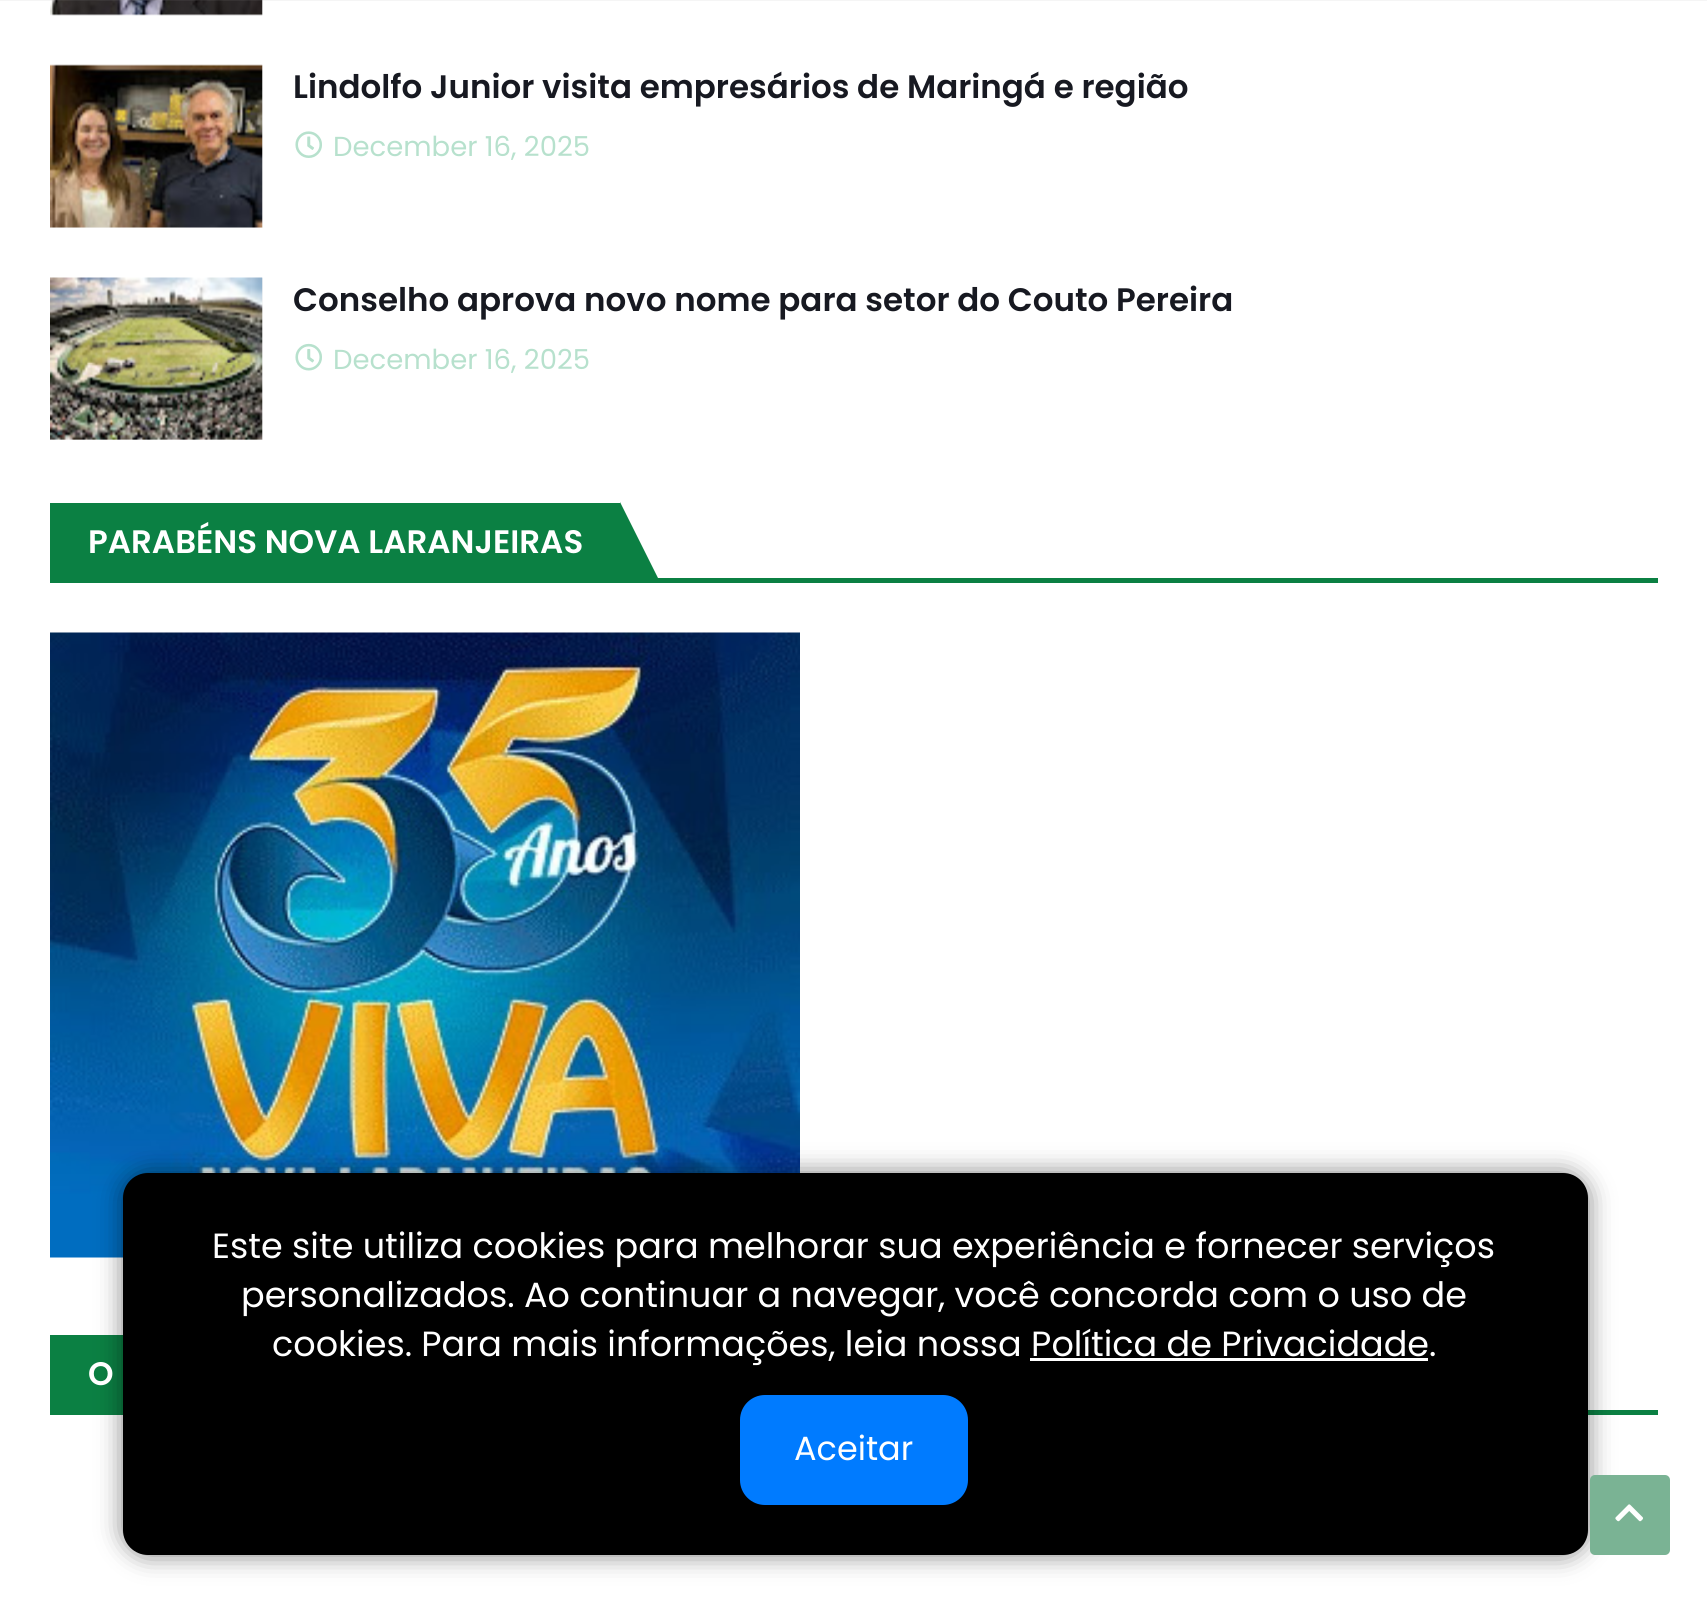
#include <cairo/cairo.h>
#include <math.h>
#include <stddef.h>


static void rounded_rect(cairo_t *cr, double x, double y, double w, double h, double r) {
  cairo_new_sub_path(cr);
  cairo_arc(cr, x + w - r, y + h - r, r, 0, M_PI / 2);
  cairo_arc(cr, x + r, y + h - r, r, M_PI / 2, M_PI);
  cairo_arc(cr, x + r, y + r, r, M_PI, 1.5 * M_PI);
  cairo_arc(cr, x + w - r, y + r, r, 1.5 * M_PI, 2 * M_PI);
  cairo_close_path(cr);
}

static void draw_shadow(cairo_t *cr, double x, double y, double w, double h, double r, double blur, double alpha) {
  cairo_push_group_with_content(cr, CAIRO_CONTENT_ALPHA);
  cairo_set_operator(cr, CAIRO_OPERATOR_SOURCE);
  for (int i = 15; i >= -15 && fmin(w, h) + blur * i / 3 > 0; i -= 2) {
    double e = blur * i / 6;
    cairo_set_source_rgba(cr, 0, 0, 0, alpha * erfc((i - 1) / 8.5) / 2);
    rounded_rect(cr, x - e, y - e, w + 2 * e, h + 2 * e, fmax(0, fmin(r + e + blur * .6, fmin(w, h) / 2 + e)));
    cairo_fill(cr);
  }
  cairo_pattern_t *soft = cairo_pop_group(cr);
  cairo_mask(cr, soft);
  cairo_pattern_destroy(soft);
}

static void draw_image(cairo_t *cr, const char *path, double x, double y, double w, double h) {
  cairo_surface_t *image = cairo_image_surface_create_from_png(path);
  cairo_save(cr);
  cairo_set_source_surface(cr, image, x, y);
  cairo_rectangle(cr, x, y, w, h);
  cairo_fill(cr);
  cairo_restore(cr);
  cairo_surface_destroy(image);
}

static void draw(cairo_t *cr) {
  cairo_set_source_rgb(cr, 1, 1, 1);
  cairo_paint(cr);
  cairo_set_source_rgb(cr, 247 / 255.0, 247 / 255.0, 247 / 255.0);
  cairo_rectangle(cr, 50, 0, 213, 15);
  cairo_fill(cr);
  draw_image(cr, "images/1.png", 50, 0, 213, 16);
  cairo_set_source_rgba(cr, 155 / 255.0, 155 / 255.0, 155 / 255.0, 0.1);
  cairo_rectangle(cr, 0, 0, 1707, 1);
  cairo_fill(cr);
  cairo_set_source_rgb(cr, 247 / 255.0, 247 / 255.0, 247 / 255.0);
  cairo_rectangle(cr, 50, 65, 213, 163);
  cairo_fill(cr);
  draw_image(cr, "images/2.png", 50, 64, 213, 164);
  draw_image(cr, "images/3.png", 295, 131, 27, 27);
  cairo_rectangle(cr, 50, 278, 213, 162);
  cairo_fill(cr);
  draw_image(cr, "images/4.png", 50, 277, 213, 163);
  draw_image(cr, "images/5.png", 295, 343, 27, 28);
  cairo_set_source_rgb(cr, 11 / 255.0, 128 / 255.0, 67 / 255.0);
  cairo_rectangle(cr, 620, 578, 1038, 5);
  cairo_fill(cr);
  cairo_rectangle(cr, 50, 503, 570, 80);
  cairo_fill(cr);
  cairo_new_path(cr);
  cairo_move_to(cr, 620, 582);
  cairo_line_to(cr, 620, 502);
  cairo_line_to(cr, 660, 582);
  cairo_close_path(cr);
  cairo_fill(cr);
  draw_image(cr, "images/6.png", 50, 632, 750, 626);
  cairo_rectangle(cr, 1588, 1410, 70, 5);
  cairo_fill(cr);
  cairo_rectangle(cr, 50, 1335, 73, 80);
  cairo_fill(cr);
  cairo_set_source_rgb(cr, 0, 0, 0);
  draw_shadow(cr, 123, 1173, 1465, 382, 25, 12.5, 0.5);
  cairo_set_source_rgb(cr, 0, 0, 0);
  rounded_rect(cr, 123, 1173, 1465, 382, 25);
  cairo_fill(cr);
  cairo_set_source_rgb(cr, 1, 1, 1);
  cairo_rectangle(cr, 1030, 1358, 398, 3);
  cairo_fill(cr);
  cairo_set_source_rgb(cr, 0, 123 / 255.0, 1);
  rounded_rect(cr, 742.5, 1397.5, 223, 105, 22.5);
  cairo_fill_preserve(cr);
  cairo_set_line_width(cr, 5);
  cairo_stroke(cr);
  cairo_set_source_rgb(cr, 122 / 255.0, 179 / 255.0, 148 / 255.0);
  rounded_rect(cr, 1590, 1475, 80, 80, 5);
  cairo_fill(cr);
  draw_image(cr, "images/7.png", 1615, 1504, 28, 18);
  cairo_select_font_face(cr, "Poppins SemiBold", CAIRO_FONT_SLANT_NORMAL, CAIRO_FONT_WEIGHT_NORMAL);
  cairo_set_font_size(cr, 32.5);
  cairo_set_source_rgb(cr, 23 / 255.0, 25 / 255.0, 33 / 255.0);
  cairo_move_to(cr, 293, 98);
  cairo_show_text(cr, "Lindolfo Junior visita empresários de Maringá e região");
  cairo_select_font_face(cr, "Poppins", CAIRO_FONT_SLANT_NORMAL, CAIRO_FONT_WEIGHT_NORMAL);
  cairo_set_font_size(cr, 27.5);
  cairo_set_source_rgb(cr, 183 / 255.0, 225 / 255.0, 205 / 255.0);
  cairo_move_to(cr, 333, 156);
  cairo_show_text(cr, "December 16, 2025");
  cairo_select_font_face(cr, "Poppins SemiBold", CAIRO_FONT_SLANT_NORMAL, CAIRO_FONT_WEIGHT_NORMAL);
  cairo_set_font_size(cr, 32.5);
  cairo_set_source_rgb(cr, 23 / 255.0, 25 / 255.0, 33 / 255.0);
  cairo_move_to(cr, 293, 311);
  cairo_show_text(cr, "Conselho aprova novo nome para setor do Couto Pereira");
  cairo_select_font_face(cr, "Poppins", CAIRO_FONT_SLANT_NORMAL, CAIRO_FONT_WEIGHT_NORMAL);
  cairo_set_font_size(cr, 27.5);
  cairo_set_source_rgb(cr, 183 / 255.0, 225 / 255.0, 205 / 255.0);
  cairo_move_to(cr, 333, 369);
  cairo_show_text(cr, "December 16, 2025");
  cairo_select_font_face(cr, "Poppins SemiBold", CAIRO_FONT_SLANT_NORMAL, CAIRO_FONT_WEIGHT_NORMAL);
  cairo_set_font_size(cr, 32.5);
  cairo_set_source_rgb(cr, 1, 1, 1);
  cairo_move_to(cr, 88, 553);
  cairo_show_text(cr, "PARABÉNS NOVA LARANJEIRAS");
  cairo_move_to(cr, 88, 1385);
  cairo_show_text(cr, "O");
  cairo_select_font_face(cr, "Poppins", CAIRO_FONT_SLANT_NORMAL, CAIRO_FONT_WEIGHT_NORMAL);
  cairo_set_font_size(cr, 35);
  cairo_move_to(cr, 212, 1258);
  cairo_show_text(cr, "Este site utiliza cookies para melhorar sua experiência e fornecer serviços");
  cairo_move_to(cr, 241, 1307);
  cairo_show_text(cr, "personalizados. Ao continuar a navegar, você concorda com o uso de");
  cairo_move_to(cr, 272, 1356);
  cairo_show_text(cr, "cookies. Para mais informações, leia nossa Política de Privacidade.");
  cairo_set_font_size(cr, 33.5);
  cairo_move_to(cr, 794, 1460);
  cairo_show_text(cr, "Aceitar");
}

int main(void) {
  cairo_surface_t *surface = cairo_image_surface_create(CAIRO_FORMAT_RGB24, 1707, 1604);
  cairo_t *cr = cairo_create(surface);
  cairo_font_options_t *options = cairo_font_options_create();
  cairo_font_options_set_hint_metrics(options, CAIRO_HINT_METRICS_OFF);
  cairo_font_options_set_hint_style(options, CAIRO_HINT_STYLE_NONE);
  cairo_set_font_options(cr, options);
  cairo_set_miter_limit(cr, 4);
  draw(cr);
  cairo_surface_write_to_png(surface, "out.png");
  cairo_font_options_destroy(options);
  cairo_destroy(cr);
  cairo_surface_destroy(surface);
  return 0;
}
